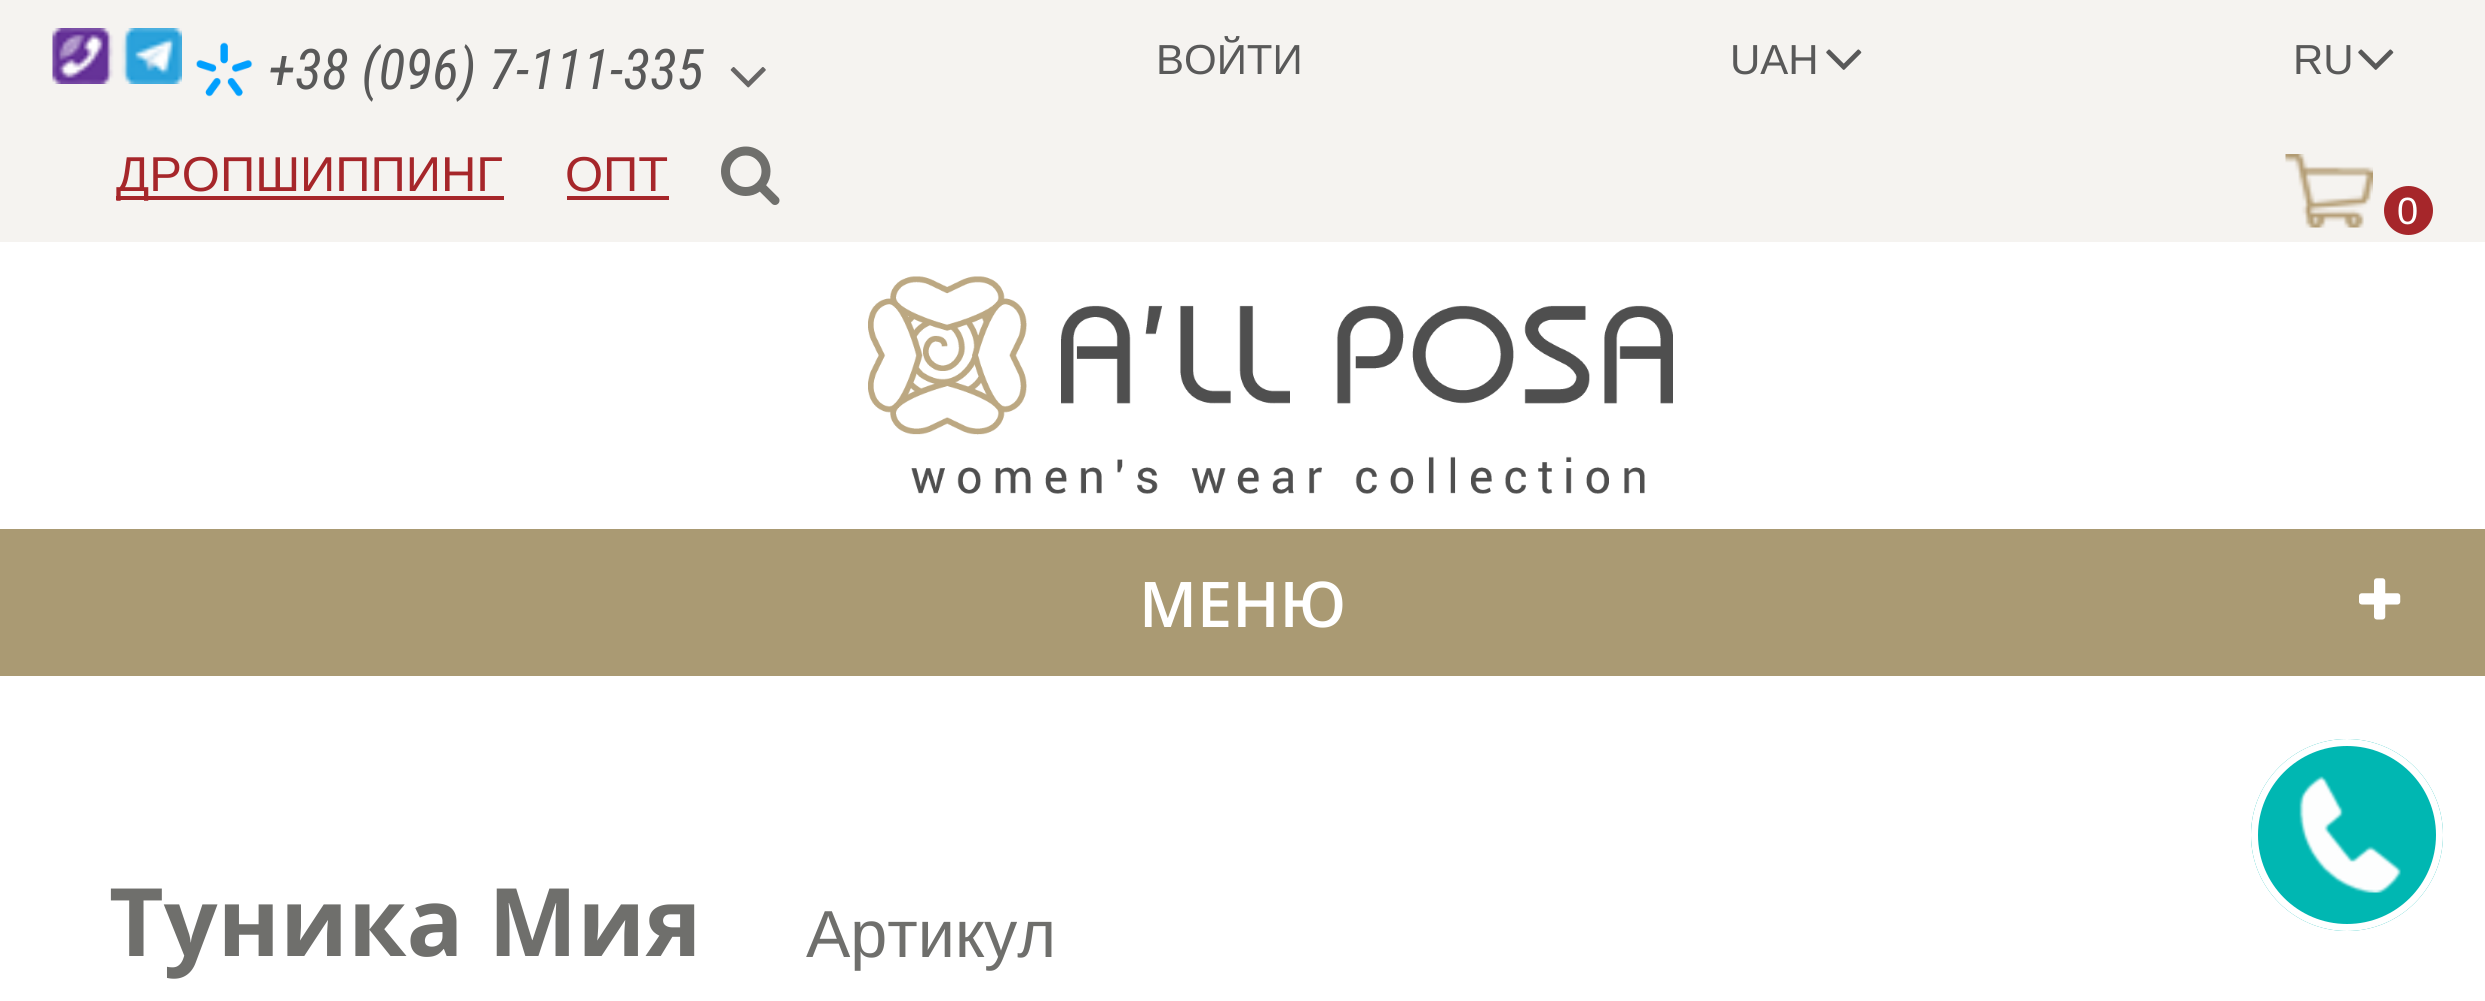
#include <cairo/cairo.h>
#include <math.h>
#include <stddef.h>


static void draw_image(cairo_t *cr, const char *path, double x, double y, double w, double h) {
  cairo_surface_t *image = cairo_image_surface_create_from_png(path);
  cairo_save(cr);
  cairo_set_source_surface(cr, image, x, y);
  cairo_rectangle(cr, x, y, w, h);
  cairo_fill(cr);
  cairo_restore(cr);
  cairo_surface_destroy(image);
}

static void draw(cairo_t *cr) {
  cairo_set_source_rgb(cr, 1, 1, 1);
  cairo_paint(cr);
  cairo_set_source_rgb(cr, 245 / 255.0, 243 / 255.0, 240 / 255.0);
  cairo_rectangle(cr, 0, 0, 2485, 242);
  cairo_fill(cr);
  draw_image(cr, "images/1.png", 52, 28, 130, 56);
  draw_image(cr, "images/2.png", 196, 42, 57, 55);
  draw_image(cr, "images/3.png", 730, 67, 36, 21);
  draw_image(cr, "images/4.png", 1826, 49, 36, 21);
  draw_image(cr, "images/4.png", 2358, 49, 36, 21);
  cairo_set_source_rgb(cr, 166 / 255.0, 38 / 255.0, 42 / 255.0);
  cairo_rectangle(cr, 116, 196, 388, 4);
  cairo_fill(cr);
  cairo_rectangle(cr, 567, 196, 102, 4);
  cairo_fill(cr);
  draw_image(cr, "images/5.png", 721, 146, 59, 59);
  draw_image(cr, "images/6.png", 2285, 154, 88, 74);
  cairo_arc(cr, 2408.5, 210.5, 24.5, 0, 2 * M_PI);
  cairo_fill(cr);
  draw_image(cr, "images/7.png", 868, 276, 805, 218);
  cairo_set_source_rgb(cr, 170 / 255.0, 154 / 255.0, 115 / 255.0);
  cairo_rectangle(cr, 0, 529, 2485, 147);
  cairo_fill(cr);
  draw_image(cr, "images/8.png", 2359, 578, 42, 42);
  cairo_set_source_rgb(cr, 0, 183 / 255.0, 178 / 255.0);
  cairo_arc(cr, 2347, 835, 96, 0, 2 * M_PI);
  cairo_fill(cr);
  draw_image(cr, "images/9.png", 2299, 776, 102, 117);
  cairo_arc(cr, 2347, 835, 92.5, 0, 2 * M_PI);
  cairo_set_source_rgb(cr, 1, 1, 1);
  cairo_set_line_width(cr, 7);
  cairo_stroke(cr);
  cairo_select_font_face(cr, "Roboto Condensed", CAIRO_FONT_SLANT_ITALIC, CAIRO_FONT_WEIGHT_NORMAL);
  cairo_set_font_size(cr, 56);
  cairo_set_source_rgb(cr, 89 / 255.0, 89 / 255.0, 89 / 255.0);
  cairo_move_to(cr, 268, 89);
  cairo_show_text(cr, "+38 (096) 7-111-335");
  cairo_select_font_face(cr, "Liberation Sans", CAIRO_FONT_SLANT_NORMAL, CAIRO_FONT_WEIGHT_NORMAL);
  cairo_set_font_size(cr, 42);
  cairo_move_to(cr, 1156, 74);
  cairo_show_text(cr, "ВОЙТИ");
  cairo_move_to(cr, 1730, 74);
  cairo_show_text(cr, "UAH");
  cairo_move_to(cr, 2293, 74);
  cairo_show_text(cr, "RU");
  cairo_set_font_size(cr, 49);
  cairo_set_source_rgb(cr, 166 / 255.0, 38 / 255.0, 42 / 255.0);
  cairo_move_to(cr, 116, 191);
  cairo_show_text(cr, "ДРОПШИППИНГ");
  cairo_move_to(cr, 565, 191);
  cairo_show_text(cr, "ОПТ");
  cairo_set_font_size(cr, 38);
  cairo_set_source_rgb(cr, 1, 1, 1);
  cairo_move_to(cr, 2397, 224);
  cairo_show_text(cr, "0");
  cairo_select_font_face(cr, "Open Sans SemiBold", CAIRO_FONT_SLANT_NORMAL, CAIRO_FONT_WEIGHT_NORMAL);
  cairo_set_font_size(cr, 63);
  cairo_move_to(cr, 1139, 627);
  cairo_show_text(cr, "МЕНЮ");
  cairo_select_font_face(cr, "Open Sans", CAIRO_FONT_SLANT_NORMAL, CAIRO_FONT_WEIGHT_BOLD);
  cairo_set_font_size(cr, 94.5);
  cairo_set_source_rgb(cr, 111 / 255.0, 111 / 255.0, 108 / 255.0);
  cairo_move_to(cr, 109, 956);
  cairo_show_text(cr, "Туника Мия");
  cairo_select_font_face(cr, "Liberation Sans", CAIRO_FONT_SLANT_NORMAL, CAIRO_FONT_WEIGHT_NORMAL);
  cairo_set_font_size(cr, 66.5);
  cairo_move_to(cr, 806, 957);
  cairo_show_text(cr, "Артикул");
}

int main(void) {
  cairo_surface_t *surface = cairo_image_surface_create(CAIRO_FORMAT_RGB24, 2485, 1001);
  cairo_t *cr = cairo_create(surface);
  cairo_font_options_t *options = cairo_font_options_create();
  cairo_font_options_set_hint_metrics(options, CAIRO_HINT_METRICS_OFF);
  cairo_font_options_set_hint_style(options, CAIRO_HINT_STYLE_NONE);
  cairo_set_font_options(cr, options);
  cairo_set_miter_limit(cr, 4);
  draw(cr);
  cairo_surface_write_to_png(surface, "out.png");
  cairo_font_options_destroy(options);
  cairo_destroy(cr);
  cairo_surface_destroy(surface);
  return 0;
}
